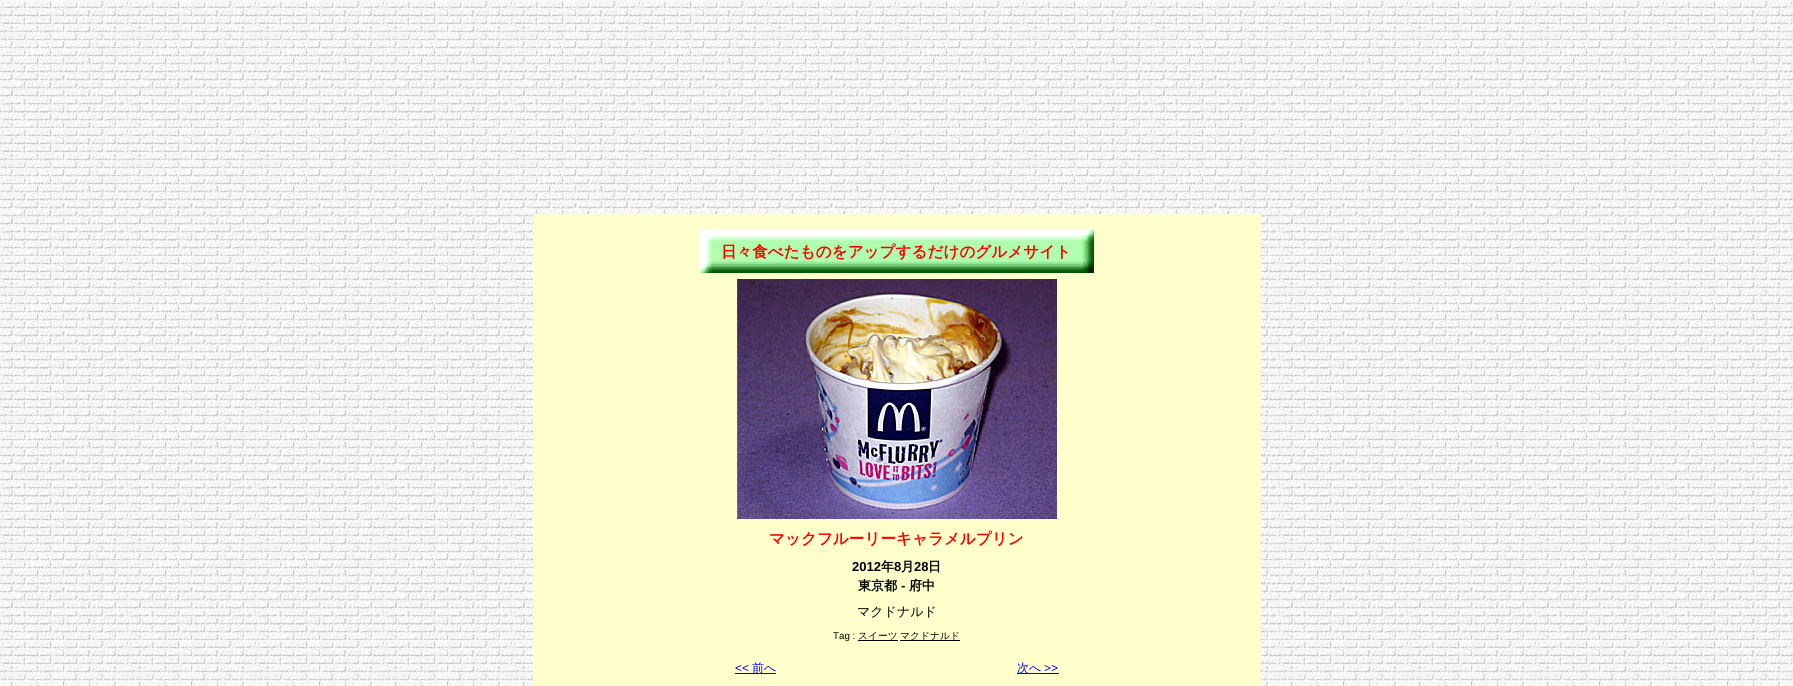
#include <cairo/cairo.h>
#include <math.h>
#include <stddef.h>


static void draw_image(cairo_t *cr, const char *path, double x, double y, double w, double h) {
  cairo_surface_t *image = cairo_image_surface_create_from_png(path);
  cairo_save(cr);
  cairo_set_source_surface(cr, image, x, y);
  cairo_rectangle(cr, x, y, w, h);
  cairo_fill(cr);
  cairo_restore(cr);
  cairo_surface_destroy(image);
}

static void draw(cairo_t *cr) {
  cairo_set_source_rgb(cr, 1, 1, 1);
  cairo_paint(cr);
  draw_image(cr, "images/1.png", 0, 0, 1793, 686);
  cairo_set_source_rgb(cr, 1, 1, 204 / 255.0);
  cairo_rectangle(cr, 533, 214, 728, 472);
  cairo_fill(cr);
  draw_image(cr, "images/2.png", 700, 229, 394, 44);
  draw_image(cr, "images/3.png", 737, 279, 320, 240);
  cairo_set_source_rgb(cr, 0, 0, 0);
  cairo_rectangle(cr, 858, 640, 40, 1);
  cairo_fill(cr);
  cairo_rectangle(cr, 900, 640, 60, 1);
  cairo_fill(cr);
  cairo_set_source_rgb(cr, 0, 0, 238 / 255.0);
  cairo_rectangle(cr, 735, 673, 41, 1);
  cairo_fill(cr);
  cairo_rectangle(cr, 1017, 673, 42, 1);
  cairo_fill(cr);
  cairo_select_font_face(cr, "WenQuanYi Zen Hei", CAIRO_FONT_SLANT_NORMAL, CAIRO_FONT_WEIGHT_BOLD);
  cairo_set_font_size(cr, 15.6);
  cairo_set_source_rgb(cr, 1, 0, 0);
  cairo_move_to(cr, 721, 257);
  cairo_show_text(cr, "日々食べたものをアップするだけのグルメサイト");
  cairo_move_to(cr, 769, 544);
  cairo_show_text(cr, "マックフルーリーキャラメルプリン");
  cairo_select_font_face(cr, "Liberation Sans", CAIRO_FONT_SLANT_NORMAL, CAIRO_FONT_WEIGHT_BOLD);
  cairo_set_font_size(cr, 13);
  cairo_set_source_rgb(cr, 0, 0, 0);
  cairo_move_to(cr, 852, 571);
  cairo_show_text(cr, "2012");
  cairo_select_font_face(cr, "WenQuanYi Zen Hei", CAIRO_FONT_SLANT_NORMAL, CAIRO_FONT_WEIGHT_BOLD);
  cairo_move_to(cr, 881, 571);
  cairo_show_text(cr, "年");
  cairo_select_font_face(cr, "Liberation Sans", CAIRO_FONT_SLANT_NORMAL, CAIRO_FONT_WEIGHT_BOLD);
  cairo_move_to(cr, 894, 571);
  cairo_show_text(cr, "8");
  cairo_select_font_face(cr, "WenQuanYi Zen Hei", CAIRO_FONT_SLANT_NORMAL, CAIRO_FONT_WEIGHT_BOLD);
  cairo_move_to(cr, 901, 571);
  cairo_show_text(cr, "月");
  cairo_select_font_face(cr, "Liberation Sans", CAIRO_FONT_SLANT_NORMAL, CAIRO_FONT_WEIGHT_BOLD);
  cairo_move_to(cr, 914, 571);
  cairo_show_text(cr, "28");
  cairo_select_font_face(cr, "WenQuanYi Zen Hei", CAIRO_FONT_SLANT_NORMAL, CAIRO_FONT_WEIGHT_BOLD);
  cairo_move_to(cr, 928, 571);
  cairo_show_text(cr, "日");
  cairo_move_to(cr, 858, 590);
  cairo_show_text(cr, "東京都");
  cairo_select_font_face(cr, "Liberation Sans", CAIRO_FONT_SLANT_NORMAL, CAIRO_FONT_WEIGHT_BOLD);
  cairo_move_to(cr, 901, 590);
  cairo_show_text(cr, "-");
  cairo_select_font_face(cr, "WenQuanYi Zen Hei", CAIRO_FONT_SLANT_NORMAL, CAIRO_FONT_WEIGHT_BOLD);
  cairo_move_to(cr, 909, 590);
  cairo_show_text(cr, "府中");
  cairo_select_font_face(cr, "WenQuanYi Zen Hei Medium", CAIRO_FONT_SLANT_NORMAL, CAIRO_FONT_WEIGHT_NORMAL);
  cairo_move_to(cr, 857, 616);
  cairo_show_text(cr, "マクドナルド");
  cairo_select_font_face(cr, "Liberation Sans", CAIRO_FONT_SLANT_NORMAL, CAIRO_FONT_WEIGHT_NORMAL);
  cairo_set_font_size(cr, 9.75);
  cairo_move_to(cr, 833, 639);
  cairo_show_text(cr, "Tag :");
  cairo_select_font_face(cr, "WenQuanYi Zen Hei Medium", CAIRO_FONT_SLANT_NORMAL, CAIRO_FONT_WEIGHT_NORMAL);
  cairo_move_to(cr, 858, 639);
  cairo_show_text(cr, "スイーツ");
  cairo_move_to(cr, 900, 639);
  cairo_show_text(cr, "マクドナルド");
  cairo_select_font_face(cr, "Liberation Sans", CAIRO_FONT_SLANT_NORMAL, CAIRO_FONT_WEIGHT_NORMAL);
  cairo_set_font_size(cr, 12);
  cairo_set_source_rgb(cr, 0, 0, 238 / 255.0);
  cairo_move_to(cr, 735, 672);
  cairo_show_text(cr, "<<");
  cairo_select_font_face(cr, "WenQuanYi Zen Hei Medium", CAIRO_FONT_SLANT_NORMAL, CAIRO_FONT_WEIGHT_NORMAL);
  cairo_move_to(cr, 752, 672);
  cairo_show_text(cr, "前へ");
  cairo_move_to(cr, 1017, 672);
  cairo_show_text(cr, "次へ");
  cairo_select_font_face(cr, "Liberation Sans", CAIRO_FONT_SLANT_NORMAL, CAIRO_FONT_WEIGHT_NORMAL);
  cairo_move_to(cr, 1044, 672);
  cairo_show_text(cr, ">>");
}

int main(void) {
  cairo_surface_t *surface = cairo_image_surface_create(CAIRO_FORMAT_RGB24, 1793, 686);
  cairo_t *cr = cairo_create(surface);
  cairo_font_options_t *options = cairo_font_options_create();
  cairo_font_options_set_hint_metrics(options, CAIRO_HINT_METRICS_OFF);
  cairo_font_options_set_hint_style(options, CAIRO_HINT_STYLE_NONE);
  cairo_set_font_options(cr, options);
  cairo_set_miter_limit(cr, 4);
  draw(cr);
  cairo_surface_write_to_png(surface, "out.png");
  cairo_font_options_destroy(options);
  cairo_destroy(cr);
  cairo_surface_destroy(surface);
  return 0;
}
